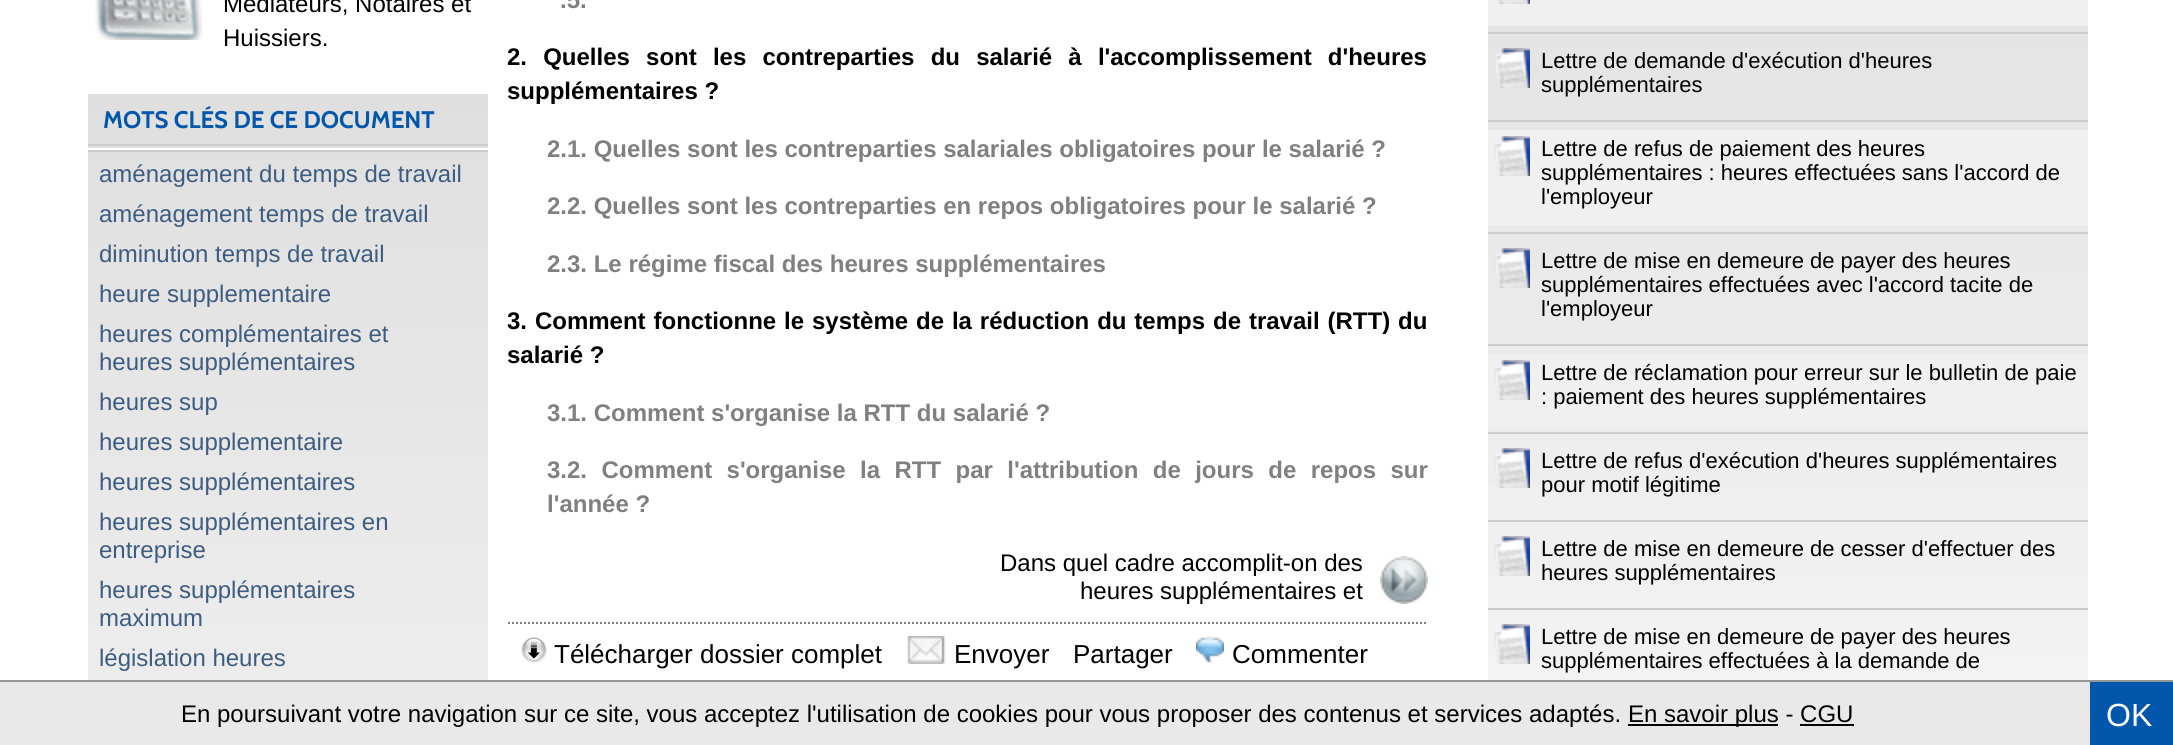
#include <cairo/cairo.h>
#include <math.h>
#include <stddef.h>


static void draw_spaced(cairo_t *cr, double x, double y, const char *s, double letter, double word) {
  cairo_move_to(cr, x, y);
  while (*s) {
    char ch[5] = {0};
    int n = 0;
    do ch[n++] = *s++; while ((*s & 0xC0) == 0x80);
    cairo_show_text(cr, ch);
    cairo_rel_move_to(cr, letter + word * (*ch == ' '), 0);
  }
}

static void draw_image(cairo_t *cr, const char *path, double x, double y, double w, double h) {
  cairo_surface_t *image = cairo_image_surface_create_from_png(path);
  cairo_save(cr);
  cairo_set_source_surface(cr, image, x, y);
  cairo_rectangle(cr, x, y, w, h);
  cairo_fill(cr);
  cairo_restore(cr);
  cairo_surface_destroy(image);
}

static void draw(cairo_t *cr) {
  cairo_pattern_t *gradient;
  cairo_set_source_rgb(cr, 1, 1, 1);
  cairo_paint(cr);
  draw_image(cr, "images/1.png", 95, 0, 108, 40);
  gradient = cairo_pattern_create_linear(288, 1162, 288, 94);
  cairo_pattern_add_color_stop_rgba(gradient, 0, 248 / 255.0, 248 / 255.0, 248 / 255.0, 1);
  cairo_pattern_add_color_stop_rgba(gradient, 1, 223 / 255.0, 223 / 255.0, 223 / 255.0, 1);
  cairo_set_source(cr, gradient);
  cairo_pattern_destroy(gradient);
  cairo_rectangle(cr, 88, 94, 400, 586);
  cairo_fill(cr);
  cairo_set_source_rgb(cr, 204 / 255.0, 204 / 255.0, 204 / 255.0);
  cairo_rectangle(cr, 88, 144, 400, 2);
  cairo_fill(cr);
  cairo_set_source_rgb(cr, 1, 1, 1);
  cairo_rectangle(cr, 88, 148, 400, 2);
  cairo_fill(cr);
  cairo_set_source_rgb(cr, 204 / 255.0, 204 / 255.0, 204 / 255.0);
  cairo_rectangle(cr, 88, 150, 400, 2);
  cairo_fill(cr);
  draw_image(cr, "images/2.png", 1380, 556, 48, 48);
  cairo_new_path(cr);
  cairo_move_to(cr, 508, 623);
  cairo_line_to(cr, 1428, 623);
  cairo_set_source_rgb(cr, 128 / 255.0, 128 / 255.0, 128 / 255.0);
  cairo_set_dash(cr, (double[]){2, 2}, 2, 0);
  cairo_stroke(cr);
  draw_image(cr, "images/3.png", 521, 637, 26, 26);
  draw_image(cr, "images/4.png", 907, 636, 39, 28);
  draw_image(cr, "images/5.png", 1196, 636, 28, 28);
  gradient = cairo_pattern_create_linear(1788, 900, 1788, -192);
  cairo_pattern_add_color_stop_rgba(gradient, 0, 248 / 255.0, 248 / 255.0, 248 / 255.0, 1);
  cairo_pattern_add_color_stop_rgba(gradient, 1, 223 / 255.0, 223 / 255.0, 223 / 255.0, 1);
  cairo_set_source(cr, gradient);
  cairo_pattern_destroy(gradient);
  cairo_rectangle(cr, 1488, 26, 600, 654);
  cairo_fill(cr);
  cairo_set_source_rgb(cr, 240 / 255.0, 240 / 255.0, 240 / 255.0);
  cairo_rectangle(cr, 1488, 0, 600, 26);
  cairo_fill(cr);
  draw_image(cr, "images/6.png", 1497, 0, 33, 4);
  cairo_set_source_rgb(cr, 204 / 255.0, 204 / 255.0, 204 / 255.0);
  cairo_rectangle(cr, 1488, 32, 600, 2);
  cairo_fill(cr);
  draw_image(cr, "images/7.png", 1494, 48, 36, 40);
  cairo_rectangle(cr, 1488, 120, 600, 2);
  cairo_fill(cr);
  cairo_set_source_rgb(cr, 240 / 255.0, 240 / 255.0, 240 / 255.0);
  cairo_rectangle(cr, 1488, 130, 600, 96);
  cairo_fill(cr);
  draw_image(cr, "images/8.png", 1494, 136, 36, 40);
  cairo_set_source_rgb(cr, 204 / 255.0, 204 / 255.0, 204 / 255.0);
  cairo_rectangle(cr, 1488, 232, 600, 2);
  cairo_fill(cr);
  draw_image(cr, "images/9.png", 1494, 248, 36, 40);
  cairo_rectangle(cr, 1488, 344, 600, 2);
  cairo_fill(cr);
  cairo_set_source_rgb(cr, 240 / 255.0, 240 / 255.0, 240 / 255.0);
  cairo_rectangle(cr, 1488, 354, 600, 72);
  cairo_fill(cr);
  draw_image(cr, "images/8.png", 1494, 360, 36, 40);
  cairo_set_source_rgb(cr, 204 / 255.0, 204 / 255.0, 204 / 255.0);
  cairo_rectangle(cr, 1488, 432, 600, 2);
  cairo_fill(cr);
  draw_image(cr, "images/10.png", 1494, 448, 36, 40);
  cairo_rectangle(cr, 1488, 520, 600, 2);
  cairo_fill(cr);
  draw_image(cr, "images/11.png", 1494, 536, 36, 40);
  cairo_rectangle(cr, 1488, 608, 600, 2);
  cairo_fill(cr);
  draw_image(cr, "images/12.png", 1494, 624, 36, 40);
  cairo_set_source_rgb(cr, 233 / 255.0, 233 / 255.0, 233 / 255.0);
  cairo_rectangle(cr, 0, 682, 2090, 63);
  cairo_fill(cr);
  cairo_set_source_rgb(cr, 151 / 255.0, 151 / 255.0, 151 / 255.0);
  cairo_rectangle(cr, 0, 680, 2173, 2);
  cairo_fill(cr);
  cairo_set_source_rgb(cr, 0, 0, 0);
  cairo_rectangle(cr, 1628, 724, 150, 2);
  cairo_fill(cr);
  cairo_rectangle(cr, 1800, 724, 54, 2);
  cairo_fill(cr);
  cairo_set_source_rgb(cr, 2 / 255.0, 87 / 255.0, 172 / 255.0);
  cairo_rectangle(cr, 2090, 682, 83, 63);
  cairo_fill(cr);
  cairo_select_font_face(cr, "Liberation Sans", CAIRO_FONT_SLANT_NORMAL, CAIRO_FONT_WEIGHT_NORMAL);
  cairo_set_font_size(cr, 24);
  cairo_set_source_rgb(cr, 0, 0, 0);
  cairo_move_to(cr, 223, 12);
  cairo_show_text(cr, "Médiateurs, Notaires et");
  cairo_move_to(cr, 223, 46);
  cairo_show_text(cr, "Huissiers.");
  cairo_select_font_face(cr, "Cabin", CAIRO_FONT_SLANT_NORMAL, CAIRO_FONT_WEIGHT_BOLD);
  cairo_set_source_rgb(cr, 2 / 255.0, 87 / 255.0, 172 / 255.0);
  cairo_move_to(cr, 103, 128);
  cairo_show_text(cr, "MOTS CLÉS DE CE DOCUMENT");
  cairo_select_font_face(cr, "Liberation Sans", CAIRO_FONT_SLANT_NORMAL, CAIRO_FONT_WEIGHT_NORMAL);
  cairo_set_source_rgb(cr, 61 / 255.0, 92 / 255.0, 129 / 255.0);
  cairo_move_to(cr, 99, 182);
  cairo_show_text(cr, "aménagement du temps de travail");
  cairo_move_to(cr, 99, 222);
  cairo_show_text(cr, "aménagement temps de travail");
  cairo_move_to(cr, 99, 262);
  cairo_show_text(cr, "diminution temps de travail");
  cairo_move_to(cr, 99, 302);
  cairo_show_text(cr, "heure supplementaire");
  cairo_move_to(cr, 99, 342);
  cairo_show_text(cr, "heures complémentaires et");
  cairo_move_to(cr, 99, 370);
  cairo_show_text(cr, "heures supplémentaires");
  cairo_move_to(cr, 99, 410);
  cairo_show_text(cr, "heures sup");
  cairo_move_to(cr, 99, 450);
  cairo_show_text(cr, "heures supplementaire");
  cairo_move_to(cr, 99, 490);
  cairo_show_text(cr, "heures supplémentaires");
  cairo_move_to(cr, 99, 530);
  cairo_show_text(cr, "heures supplémentaires en");
  cairo_move_to(cr, 99, 558);
  cairo_show_text(cr, "entreprise");
  cairo_move_to(cr, 99, 598);
  cairo_show_text(cr, "heures supplémentaires");
  cairo_move_to(cr, 99, 626);
  cairo_show_text(cr, "maximum");
  cairo_move_to(cr, 99, 666);
  cairo_show_text(cr, "législation heures");
  cairo_select_font_face(cr, "Liberation Sans", CAIRO_FONT_SLANT_NORMAL, CAIRO_FONT_WEIGHT_BOLD);
  cairo_set_source_rgb(cr, 128 / 255.0, 128 / 255.0, 128 / 255.0);
  cairo_move_to(cr, 560, 8);
  cairo_show_text(cr, ".5.");
  cairo_set_source_rgb(cr, 0, 0, 0);
  draw_spaced(cr, 507, 65, "2. Quelles sont les contreparties du salarié à l'accomplissement d'heures", 0, 9.5);
  cairo_move_to(cr, 507, 99);
  cairo_show_text(cr, "supplémentaires ?");
  cairo_set_source_rgb(cr, 128 / 255.0, 128 / 255.0, 128 / 255.0);
  cairo_move_to(cr, 547, 157);
  cairo_show_text(cr, "2.1. Quelles sont les contreparties salariales obligatoires pour le salarié ?");
  cairo_move_to(cr, 547, 214);
  cairo_show_text(cr, "2.2. Quelles sont les contreparties en repos obligatoires pour le salarié ?");
  cairo_move_to(cr, 547, 272);
  cairo_show_text(cr, "2.3. Le régime fiscal des heures supplémentaires");
  cairo_set_source_rgb(cr, 0, 0, 0);
  draw_spaced(cr, 507, 329, "3. Comment fonctionne le système de la réduction du temps de travail (RTT) du", 0, 1.25);
  cairo_move_to(cr, 507, 363);
  cairo_show_text(cr, "salarié ?");
  cairo_set_source_rgb(cr, 128 / 255.0, 128 / 255.0, 128 / 255.0);
  cairo_move_to(cr, 547, 421);
  cairo_show_text(cr, "3.1. Comment s'organise la RTT du salarié ?");
  draw_spaced(cr, 547, 478, "3.2. Comment s'organise la RTT par l'attribution de jours de repos sur", 0, 7.75);
  cairo_move_to(cr, 547, 512);
  cairo_show_text(cr, "l'année ?");
  cairo_select_font_face(cr, "Liberation Sans", CAIRO_FONT_SLANT_NORMAL, CAIRO_FONT_WEIGHT_NORMAL);
  cairo_set_source_rgb(cr, 0, 0, 0);
  cairo_move_to(cr, 1000, 571);
  cairo_show_text(cr, "Dans quel cadre accomplit-on des");
  cairo_move_to(cr, 1080, 599);
  cairo_show_text(cr, "heures supplémentaires et");
  cairo_set_font_size(cr, 26);
  cairo_move_to(cr, 554, 663);
  cairo_show_text(cr, "Télécharger dossier complet");
  cairo_move_to(cr, 954, 663);
  cairo_show_text(cr, "Envoyer");
  cairo_move_to(cr, 1073, 663);
  cairo_show_text(cr, "Partager");
  cairo_move_to(cr, 1232, 663);
  cairo_show_text(cr, "Commenter");
  cairo_set_font_size(cr, 22);
  cairo_move_to(cr, 1541, 68);
  cairo_show_text(cr, "Lettre de demande d'exécution d'heures");
  cairo_move_to(cr, 1541, 92);
  cairo_show_text(cr, "supplémentaires");
  cairo_move_to(cr, 1541, 156);
  cairo_show_text(cr, "Lettre de refus de paiement des heures");
  cairo_move_to(cr, 1541, 180);
  cairo_show_text(cr, "supplémentaires : heures effectuées sans l'accord de");
  cairo_move_to(cr, 1541, 204);
  cairo_show_text(cr, "l'employeur");
  cairo_move_to(cr, 1541, 268);
  cairo_show_text(cr, "Lettre de mise en demeure de payer des heures");
  cairo_move_to(cr, 1541, 292);
  cairo_show_text(cr, "supplémentaires effectuées avec l'accord tacite de");
  cairo_move_to(cr, 1541, 316);
  cairo_show_text(cr, "l'employeur");
  cairo_move_to(cr, 1541, 380);
  cairo_show_text(cr, "Lettre de réclamation pour erreur sur le bulletin de paie");
  cairo_move_to(cr, 1541, 404);
  cairo_show_text(cr, ": paiement des heures supplémentaires");
  cairo_move_to(cr, 1541, 468);
  cairo_show_text(cr, "Lettre de refus d'exécution d'heures supplémentaires");
  cairo_move_to(cr, 1541, 492);
  cairo_show_text(cr, "pour motif légitime");
  cairo_move_to(cr, 1541, 556);
  cairo_show_text(cr, "Lettre de mise en demeure de cesser d'effectuer des");
  cairo_move_to(cr, 1541, 580);
  cairo_show_text(cr, "heures supplémentaires");
  cairo_move_to(cr, 1541, 644);
  cairo_show_text(cr, "Lettre de mise en demeure de payer des heures");
  cairo_move_to(cr, 1541, 668);
  cairo_show_text(cr, "supplémentaires effectuées à la demande de");
  cairo_set_font_size(cr, 24);
  cairo_move_to(cr, 181, 722);
  cairo_show_text(cr, "En poursuivant votre navigation sur ce site, vous acceptez l'utilisation de cookies pour vous proposer des contenus et services adaptés.");
  cairo_move_to(cr, 1628, 722);
  cairo_show_text(cr, "En savoir plus - CGU");
  cairo_set_font_size(cr, 32);
  cairo_set_source_rgb(cr, 1, 1, 1);
  cairo_move_to(cr, 2106, 726);
  cairo_show_text(cr, "OK");
}

int main(void) {
  cairo_surface_t *surface = cairo_image_surface_create(CAIRO_FORMAT_RGB24, 2173, 745);
  cairo_t *cr = cairo_create(surface);
  cairo_font_options_t *options = cairo_font_options_create();
  cairo_font_options_set_hint_metrics(options, CAIRO_HINT_METRICS_OFF);
  cairo_font_options_set_hint_style(options, CAIRO_HINT_STYLE_NONE);
  cairo_set_font_options(cr, options);
  cairo_set_miter_limit(cr, 4);
  draw(cr);
  cairo_surface_write_to_png(surface, "out.png");
  cairo_font_options_destroy(options);
  cairo_destroy(cr);
  cairo_surface_destroy(surface);
  return 0;
}
